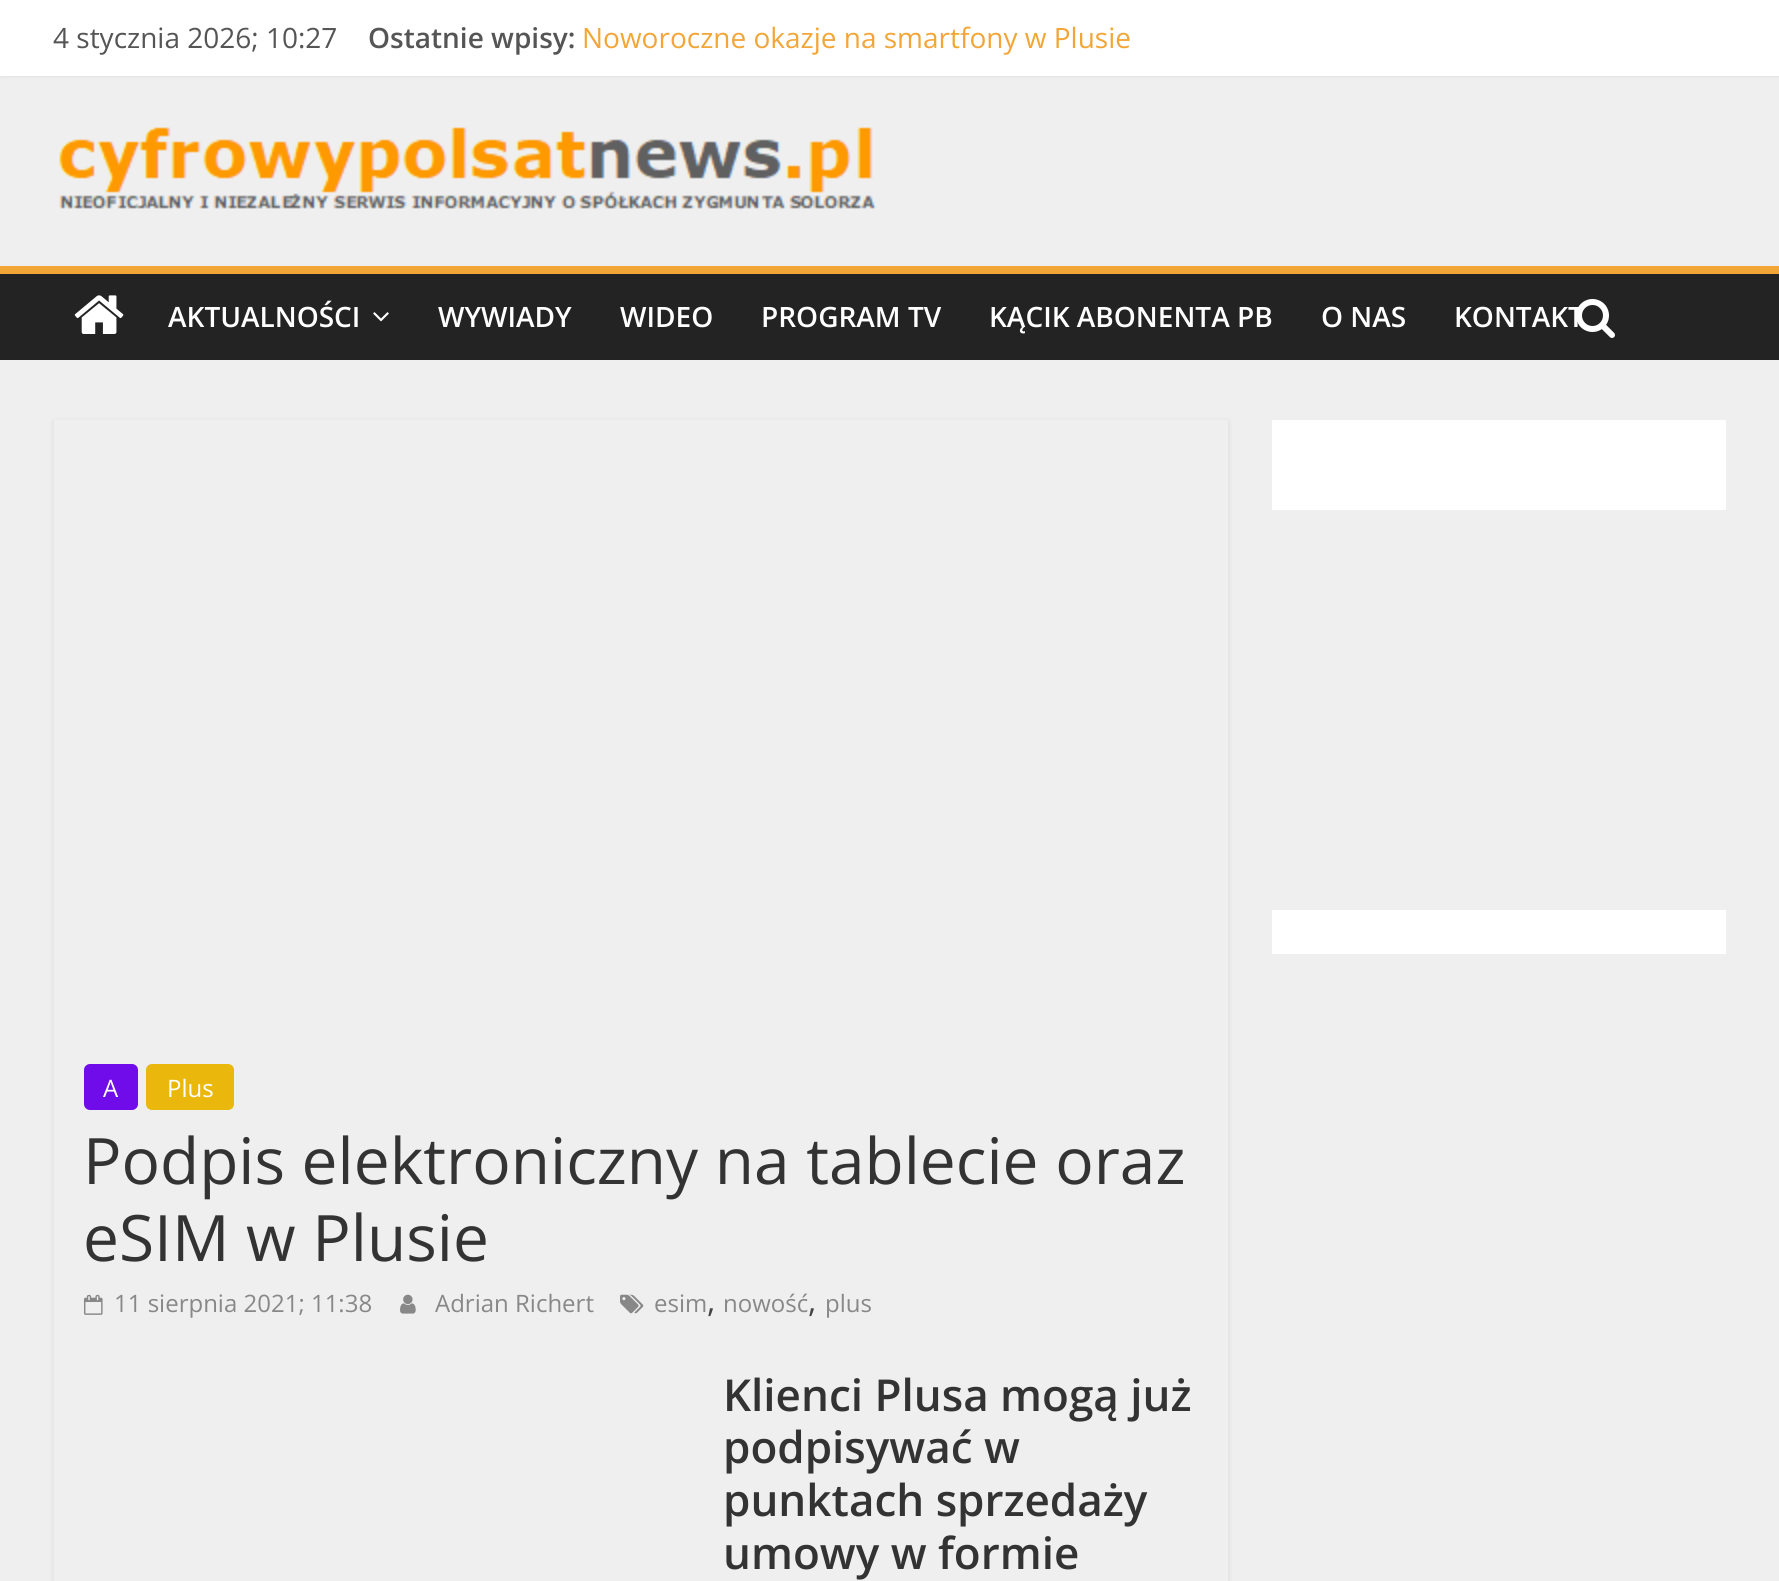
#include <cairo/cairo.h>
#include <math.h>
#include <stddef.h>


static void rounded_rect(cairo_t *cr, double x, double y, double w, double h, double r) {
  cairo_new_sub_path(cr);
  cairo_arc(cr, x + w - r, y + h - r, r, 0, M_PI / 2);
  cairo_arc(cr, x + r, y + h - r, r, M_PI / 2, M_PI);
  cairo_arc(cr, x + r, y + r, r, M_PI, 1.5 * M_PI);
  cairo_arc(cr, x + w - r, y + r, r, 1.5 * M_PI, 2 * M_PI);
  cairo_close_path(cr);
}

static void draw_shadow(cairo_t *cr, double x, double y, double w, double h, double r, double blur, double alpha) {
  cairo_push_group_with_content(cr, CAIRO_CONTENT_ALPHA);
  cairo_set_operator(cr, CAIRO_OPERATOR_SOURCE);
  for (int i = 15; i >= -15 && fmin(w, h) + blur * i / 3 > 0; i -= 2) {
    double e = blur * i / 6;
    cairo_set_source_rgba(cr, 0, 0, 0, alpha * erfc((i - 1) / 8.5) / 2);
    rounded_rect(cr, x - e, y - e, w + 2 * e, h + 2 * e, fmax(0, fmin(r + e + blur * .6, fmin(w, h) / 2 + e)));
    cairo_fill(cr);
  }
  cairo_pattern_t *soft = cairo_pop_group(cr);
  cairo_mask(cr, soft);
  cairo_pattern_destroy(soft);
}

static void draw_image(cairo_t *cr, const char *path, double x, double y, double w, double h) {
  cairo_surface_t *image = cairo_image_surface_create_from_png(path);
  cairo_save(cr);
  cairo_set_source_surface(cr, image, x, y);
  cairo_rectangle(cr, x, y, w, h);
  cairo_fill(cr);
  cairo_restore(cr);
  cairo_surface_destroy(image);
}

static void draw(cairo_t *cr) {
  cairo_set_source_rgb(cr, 239 / 255.0, 239 / 255.0, 239 / 255.0);
  cairo_paint(cr);
  cairo_set_source_rgb(cr, 0, 0, 0);
  draw_shadow(cr, 0, 0, 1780, 76, 0, 2, 0.1);
  cairo_set_source_rgb(cr, 1, 1, 1);
  cairo_rectangle(cr, 0, 0, 1779, 76);
  cairo_fill(cr);
  draw_image(cr, "images/1.png", 59, 127, 818, 83);
  cairo_set_source_rgb(cr, 35 / 255.0, 35 / 255.0, 35 / 255.0);
  cairo_rectangle(cr, 0, 274, 1779, 86);
  cairo_fill(cr);
  cairo_set_source_rgb(cr, 243 / 255.0, 166 / 255.0, 56 / 255.0);
  cairo_rectangle(cr, 0, 266, 1779, 8);
  cairo_fill(cr);
  draw_image(cr, "images/2.png", 74, 295, 50, 39);
  draw_image(cr, "images/3.png", 373, 312, 16, 10);
  cairo_set_source_rgb(cr, 1, 1, 1);
  cairo_rectangle(cr, 1272, 420, 454, 534);
  cairo_fill(cr);
  cairo_set_source_rgb(cr, 239 / 255.0, 239 / 255.0, 239 / 255.0);
  cairo_rectangle(cr, 1272, 510, 454, 400);
  cairo_fill(cr);
  cairo_save(cr);
  cairo_set_fill_rule(cr, CAIRO_FILL_RULE_EVEN_ODD);
  cairo_new_path(cr);
  cairo_move_to(cr, 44, 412);
  cairo_line_to(cr, 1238, 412);
  cairo_line_to(cr, 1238, 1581);
  cairo_line_to(cr, 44, 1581);
  cairo_close_path(cr);
  cairo_move_to(cr, 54, 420);
  cairo_line_to(cr, 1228, 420);
  cairo_line_to(cr, 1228, 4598);
  cairo_line_to(cr, 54, 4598);
  cairo_close_path(cr);
  cairo_clip(cr);
  cairo_set_source_rgb(cr, 0, 0, 0);
  draw_shadow(cr, 54, 422, 1174, 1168, 0, 3, 0.1);
  cairo_restore(cr);
  cairo_set_source_rgb(cr, 111 / 255.0, 12 / 255.0, 233 / 255.0);
  rounded_rect(cr, 84, 1064, 54, 46, 6);
  cairo_fill(cr);
  cairo_set_source_rgb(cr, 234 / 255.0, 184 / 255.0, 12 / 255.0);
  rounded_rect(cr, 146, 1064, 88, 46, 6);
  cairo_fill(cr);
  draw_image(cr, "images/5.png", 84, 1294, 19, 21);
  draw_image(cr, "images/6.png", 400, 1294, 16, 20);
  draw_image(cr, "images/7.png", 620, 1294, 24, 20);
  cairo_select_font_face(cr, "Open Sans", CAIRO_FONT_SLANT_NORMAL, CAIRO_FONT_WEIGHT_NORMAL);
  cairo_set_font_size(cr, 28);
  cairo_set_source_rgb(cr, 85 / 255.0, 85 / 255.0, 85 / 255.0);
  cairo_move_to(cr, 53, 48);
  cairo_show_text(cr, "4 stycznia 2026; 10:27");
  cairo_select_font_face(cr, "Open Sans SemiBold", CAIRO_FONT_SLANT_NORMAL, CAIRO_FONT_WEIGHT_NORMAL);
  cairo_move_to(cr, 368, 48);
  cairo_show_text(cr, "Ostatnie wpisy:");
  cairo_select_font_face(cr, "Open Sans", CAIRO_FONT_SLANT_NORMAL, CAIRO_FONT_WEIGHT_NORMAL);
  cairo_set_source_rgb(cr, 243 / 255.0, 166 / 255.0, 56 / 255.0);
  cairo_move_to(cr, 582, 48);
  cairo_show_text(cr, "Noworoczne okazje na smartfony w Plusie");
  cairo_select_font_face(cr, "Open Sans SemiBold", CAIRO_FONT_SLANT_NORMAL, CAIRO_FONT_WEIGHT_NORMAL);
  cairo_set_source_rgb(cr, 1, 1, 1);
  cairo_move_to(cr, 168, 327);
  cairo_show_text(cr, "AKTUALNOŚCI");
  cairo_move_to(cr, 438, 327);
  cairo_show_text(cr, "WYWIADY");
  cairo_move_to(cr, 620, 327);
  cairo_show_text(cr, "WIDEO");
  cairo_move_to(cr, 761, 327);
  cairo_show_text(cr, "PROGRAM TV");
  cairo_move_to(cr, 989, 327);
  cairo_show_text(cr, "KĄCIK ABONENTA PB");
  cairo_move_to(cr, 1321, 327);
  cairo_show_text(cr, "O NAS");
  cairo_move_to(cr, 1454, 327);
  cairo_show_text(cr, "KONTAKT");
  draw_image(cr, "images/4.png", 1577, 299, 38, 39);
  cairo_select_font_face(cr, "Open Sans", CAIRO_FONT_SLANT_NORMAL, CAIRO_FONT_WEIGHT_NORMAL);
  cairo_set_font_size(cr, 24);
  cairo_move_to(cr, 103, 1097);
  cairo_show_text(cr, "A");
  cairo_move_to(cr, 167, 1097);
  cairo_show_text(cr, "Plus");
  cairo_set_font_size(cr, 64);
  cairo_set_source_rgb(cr, 51 / 255.0, 51 / 255.0, 51 / 255.0);
  cairo_move_to(cr, 83, 1184);
  cairo_show_text(cr, "Podpis elektroniczny na tablecie oraz");
  cairo_move_to(cr, 83, 1261);
  cairo_show_text(cr, "eSIM w Plusie");
  cairo_set_font_size(cr, 24);
  cairo_set_source_rgb(cr, 136 / 255.0, 136 / 255.0, 136 / 255.0);
  cairo_move_to(cr, 114, 1312);
  cairo_show_text(cr, "11 sierpnia 2021; 11:38");
  cairo_move_to(cr, 435, 1312);
  cairo_show_text(cr, "Adrian Richert");
  cairo_move_to(cr, 654, 1312);
  cairo_show_text(cr, "esim");
  cairo_set_font_size(cr, 32);
  cairo_set_source_rgb(cr, 68 / 255.0, 68 / 255.0, 68 / 255.0);
  cairo_move_to(cr, 707, 1312);
  cairo_show_text(cr, ",");
  cairo_set_font_size(cr, 24);
  cairo_set_source_rgb(cr, 136 / 255.0, 136 / 255.0, 136 / 255.0);
  cairo_move_to(cr, 723, 1312);
  cairo_show_text(cr, "nowość");
  cairo_set_font_size(cr, 32);
  cairo_set_source_rgb(cr, 68 / 255.0, 68 / 255.0, 68 / 255.0);
  cairo_move_to(cr, 808, 1312);
  cairo_show_text(cr, ",");
  cairo_set_font_size(cr, 24);
  cairo_set_source_rgb(cr, 136 / 255.0, 136 / 255.0, 136 / 255.0);
  cairo_move_to(cr, 825, 1312);
  cairo_show_text(cr, "plus");
  cairo_select_font_face(cr, "Open Sans SemiBold", CAIRO_FONT_SLANT_NORMAL, CAIRO_FONT_WEIGHT_NORMAL);
  cairo_set_font_size(cr, 44);
  cairo_set_source_rgb(cr, 51 / 255.0, 51 / 255.0, 51 / 255.0);
  cairo_move_to(cr, 723, 1411);
  cairo_show_text(cr, "Klienci Plusa mogą już");
  cairo_move_to(cr, 723, 1463);
  cairo_show_text(cr, "podpisywać w");
  cairo_move_to(cr, 723, 1516);
  cairo_show_text(cr, "punktach sprzedaży");
  cairo_move_to(cr, 723, 1569);
  cairo_show_text(cr, "umowy w formie");
}

int main(void) {
  cairo_surface_t *surface = cairo_image_surface_create(CAIRO_FORMAT_RGB24, 1779, 1581);
  cairo_t *cr = cairo_create(surface);
  cairo_font_options_t *options = cairo_font_options_create();
  cairo_font_options_set_hint_metrics(options, CAIRO_HINT_METRICS_OFF);
  cairo_font_options_set_hint_style(options, CAIRO_HINT_STYLE_NONE);
  cairo_set_font_options(cr, options);
  cairo_set_miter_limit(cr, 4);
  draw(cr);
  cairo_surface_write_to_png(surface, "out.png");
  cairo_font_options_destroy(options);
  cairo_destroy(cr);
  cairo_surface_destroy(surface);
  return 0;
}
